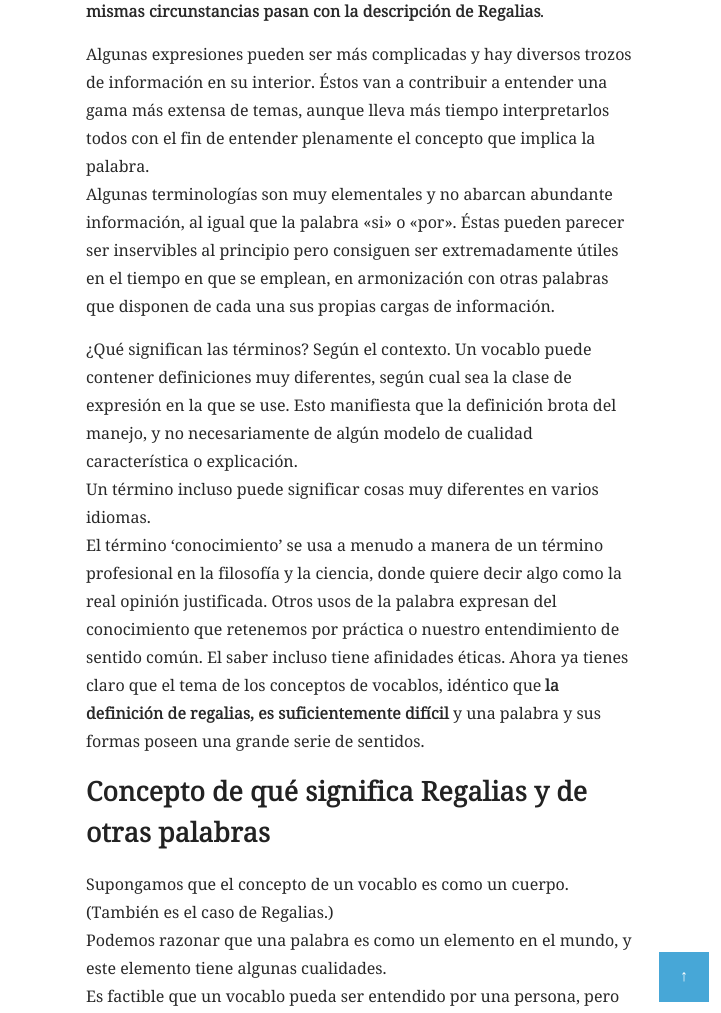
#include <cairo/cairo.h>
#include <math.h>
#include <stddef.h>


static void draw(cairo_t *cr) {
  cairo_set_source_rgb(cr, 1, 1, 1);
  cairo_paint(cr);
  cairo_set_source_rgb(cr, 71 / 255.0, 167 / 255.0, 215 / 255.0);
  cairo_rectangle(cr, 659, 952, 50, 50);
  cairo_fill(cr);
  cairo_select_font_face(cr, "Noto Serif", CAIRO_FONT_SLANT_NORMAL, CAIRO_FONT_WEIGHT_BOLD);
  cairo_set_font_size(cr, 16);
  cairo_set_source_rgb(cr, 40 / 255.0, 40 / 255.0, 40 / 255.0);
  cairo_move_to(cr, 86, 17);
  cairo_show_text(cr, "mismas circunstancias pasan con la descripción de Regalias");
  cairo_select_font_face(cr, "Noto Serif", CAIRO_FONT_SLANT_NORMAL, CAIRO_FONT_WEIGHT_NORMAL);
  cairo_move_to(cr, 540, 17);
  cairo_show_text(cr, ".");
  cairo_move_to(cr, 86, 60);
  cairo_show_text(cr, "Algunas expresiones pueden ser más complicadas y hay diversos trozos");
  cairo_move_to(cr, 86, 88);
  cairo_show_text(cr, "de información en su interior. Éstos van a contribuir a entender una");
  cairo_move_to(cr, 86, 116);
  cairo_show_text(cr, "gama más extensa de temas, aunque lleva más tiempo interpretarlos");
  cairo_move_to(cr, 86, 144);
  cairo_show_text(cr, "todos con el fin de entender plenamente el concepto que implica la");
  cairo_move_to(cr, 86, 172);
  cairo_show_text(cr, "palabra.");
  cairo_move_to(cr, 86, 200);
  cairo_show_text(cr, "Algunas terminologías son muy elementales y no abarcan abundante");
  cairo_move_to(cr, 86, 228);
  cairo_show_text(cr, "información, al igual que la palabra «si» o «por». Éstas pueden parecer");
  cairo_move_to(cr, 86, 256);
  cairo_show_text(cr, "ser inservibles al principio pero consiguen ser extremadamente útiles");
  cairo_move_to(cr, 86, 284);
  cairo_show_text(cr, "en el tiempo en que se emplean, en armonización con otras palabras");
  cairo_move_to(cr, 86, 312);
  cairo_show_text(cr, "que disponen de cada una sus propias cargas de información.");
  cairo_move_to(cr, 86, 355);
  cairo_show_text(cr, "¿Qué significan las términos? Según el contexto. Un vocablo puede");
  cairo_move_to(cr, 86, 383);
  cairo_show_text(cr, "contener definiciones muy diferentes, según cual sea la clase de");
  cairo_move_to(cr, 86, 411);
  cairo_show_text(cr, "expresión en la que se use. Esto manifiesta que la definición brota del");
  cairo_move_to(cr, 86, 439);
  cairo_show_text(cr, "manejo, y no necesariamente de algún modelo de cualidad");
  cairo_move_to(cr, 86, 467);
  cairo_show_text(cr, "característica o explicación.");
  cairo_move_to(cr, 86, 495);
  cairo_show_text(cr, "Un término incluso puede significar cosas muy diferentes en varios");
  cairo_move_to(cr, 86, 523);
  cairo_show_text(cr, "idiomas.");
  cairo_move_to(cr, 86, 551);
  cairo_show_text(cr, "El término ‘conocimiento’ se usa a menudo a manera de un término");
  cairo_move_to(cr, 86, 579);
  cairo_show_text(cr, "profesional en la filosofía y la ciencia, donde quiere decir algo como la");
  cairo_move_to(cr, 86, 607);
  cairo_show_text(cr, "real opinión justificada. Otros usos de la palabra expresan del");
  cairo_move_to(cr, 86, 635);
  cairo_show_text(cr, "conocimiento que retenemos por práctica o nuestro entendimiento de");
  cairo_move_to(cr, 86, 663);
  cairo_show_text(cr, "sentido común. El saber incluso tiene afinidades éticas. Ahora ya tienes");
  cairo_move_to(cr, 86, 691);
  cairo_show_text(cr, "claro que el tema de los conceptos de vocablos, idéntico que");
  cairo_select_font_face(cr, "Noto Serif", CAIRO_FONT_SLANT_NORMAL, CAIRO_FONT_WEIGHT_BOLD);
  cairo_move_to(cr, 545, 691);
  cairo_show_text(cr, "la");
  cairo_move_to(cr, 86, 719);
  cairo_show_text(cr, "definición de regalias, es suficientemente difícil");
  cairo_select_font_face(cr, "Noto Serif", CAIRO_FONT_SLANT_NORMAL, CAIRO_FONT_WEIGHT_NORMAL);
  cairo_move_to(cr, 453, 719);
  cairo_show_text(cr, "y una palabra y sus");
  cairo_move_to(cr, 86, 747);
  cairo_show_text(cr, "formas poseen una grande serie de sentidos.");
  cairo_select_font_face(cr, "Noto Serif", CAIRO_FONT_SLANT_NORMAL, CAIRO_FONT_WEIGHT_BOLD);
  cairo_set_font_size(cr, 27);
  cairo_set_source_rgb(cr, 34 / 255.0, 34 / 255.0, 34 / 255.0);
  cairo_move_to(cr, 86, 801);
  cairo_show_text(cr, "Concepto de qué significa Regalias y de");
  cairo_move_to(cr, 86, 842);
  cairo_show_text(cr, "otras palabras");
  cairo_select_font_face(cr, "Noto Serif", CAIRO_FONT_SLANT_NORMAL, CAIRO_FONT_WEIGHT_NORMAL);
  cairo_set_font_size(cr, 16);
  cairo_set_source_rgb(cr, 40 / 255.0, 40 / 255.0, 40 / 255.0);
  cairo_move_to(cr, 86, 890);
  cairo_show_text(cr, "Supongamos que el concepto de un vocablo es como un cuerpo.");
  cairo_move_to(cr, 86, 918);
  cairo_show_text(cr, "(También es el caso de Regalias.)");
  cairo_move_to(cr, 86, 946);
  cairo_show_text(cr, "Podemos razonar que una palabra es como un elemento en el mundo, y");
  cairo_move_to(cr, 86, 974);
  cairo_show_text(cr, "este elemento tiene algunas cualidades.");
  cairo_move_to(cr, 86, 1002);
  cairo_show_text(cr, "Es factible que un vocablo pueda ser entendido por una persona, pero");
  cairo_select_font_face(cr, "Liberation Serif", CAIRO_FONT_SLANT_NORMAL, CAIRO_FONT_WEIGHT_NORMAL);
  cairo_set_source_rgb(cr, 1, 1, 1);
  cairo_move_to(cr, 680, 981);
  cairo_show_text(cr, "↑");
}

int main(void) {
  cairo_surface_t *surface = cairo_image_surface_create(CAIRO_FORMAT_RGB24, 721, 1013);
  cairo_t *cr = cairo_create(surface);
  cairo_font_options_t *options = cairo_font_options_create();
  cairo_font_options_set_hint_metrics(options, CAIRO_HINT_METRICS_OFF);
  cairo_font_options_set_hint_style(options, CAIRO_HINT_STYLE_NONE);
  cairo_set_font_options(cr, options);
  cairo_set_miter_limit(cr, 4);
  draw(cr);
  cairo_surface_write_to_png(surface, "out.png");
  cairo_font_options_destroy(options);
  cairo_destroy(cr);
  cairo_surface_destroy(surface);
  return 0;
}
